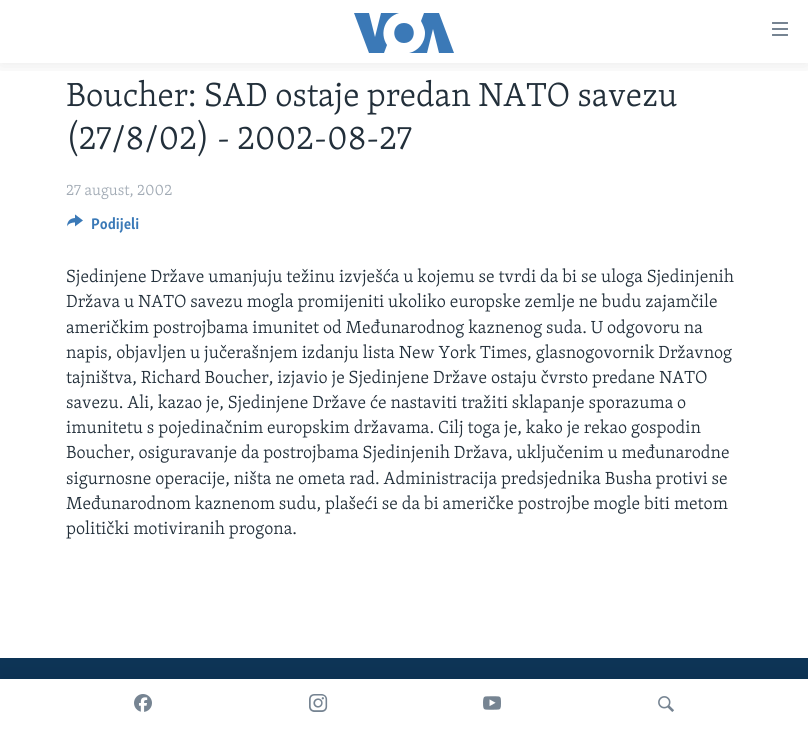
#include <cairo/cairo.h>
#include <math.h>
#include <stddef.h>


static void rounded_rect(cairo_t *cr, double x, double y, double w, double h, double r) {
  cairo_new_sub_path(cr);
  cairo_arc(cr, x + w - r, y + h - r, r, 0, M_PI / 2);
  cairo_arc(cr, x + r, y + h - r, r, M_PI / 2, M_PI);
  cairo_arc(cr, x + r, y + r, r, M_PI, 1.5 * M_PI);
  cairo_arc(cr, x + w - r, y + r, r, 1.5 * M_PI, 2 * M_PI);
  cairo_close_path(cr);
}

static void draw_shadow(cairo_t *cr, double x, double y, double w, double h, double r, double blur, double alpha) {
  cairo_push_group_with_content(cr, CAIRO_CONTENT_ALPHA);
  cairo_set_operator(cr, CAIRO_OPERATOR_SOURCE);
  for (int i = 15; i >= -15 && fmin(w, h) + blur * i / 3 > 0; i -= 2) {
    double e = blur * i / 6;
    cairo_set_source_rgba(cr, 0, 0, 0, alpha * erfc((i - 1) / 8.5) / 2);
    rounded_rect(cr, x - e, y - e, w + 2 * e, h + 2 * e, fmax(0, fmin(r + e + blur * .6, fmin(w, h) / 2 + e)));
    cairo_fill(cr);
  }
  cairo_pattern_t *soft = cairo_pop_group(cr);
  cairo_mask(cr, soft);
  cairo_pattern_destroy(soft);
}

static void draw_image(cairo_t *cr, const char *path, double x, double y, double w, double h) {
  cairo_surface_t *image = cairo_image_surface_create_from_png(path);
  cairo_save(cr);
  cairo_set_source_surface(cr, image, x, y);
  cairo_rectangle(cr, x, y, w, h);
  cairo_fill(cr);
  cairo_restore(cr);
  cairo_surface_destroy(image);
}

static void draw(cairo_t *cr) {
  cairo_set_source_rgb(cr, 1, 1, 1);
  cairo_paint(cr);
  cairo_save(cr);
  cairo_rectangle(cr, 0, 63, 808, 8);
  cairo_clip(cr);
  cairo_set_source_rgb(cr, 0, 0, 0);
  draw_shadow(cr, 0, 0, 808, 63, 0, 10, 0.1);
  cairo_restore(cr);
  cairo_set_source_rgb(cr, 59 / 255.0, 121 / 255.0, 183 / 255.0);
  cairo_new_path(cr);
  cairo_move_to(cr, 387, 45);
  cairo_line_to(cr, 384, 53);
  cairo_line_to(cr, 369, 53);
  cairo_line_to(cr, 354, 13);
  cairo_line_to(cr, 369, 13);
  cairo_line_to(cr, 375, 37);
  cairo_line_to(cr, 381, 13);
  cairo_line_to(cr, 399, 13);
  cairo_curve_to(cr, 385, 17, 379, 33, 387, 45);
  cairo_close_path(cr);
  cairo_move_to(cr, 404, 23);
  cairo_curve_to(cr, 391, 23, 391, 43, 404, 43);
  cairo_curve_to(cr, 417, 43, 417, 23, 404, 23);
  cairo_close_path(cr);
  cairo_move_to(cr, 425, 33);
  cairo_curve_to(cr, 425, 43, 418, 51, 409, 53);
  cairo_line_to(cr, 427, 53);
  cairo_line_to(cr, 433, 29);
  cairo_line_to(cr, 439, 53);
  cairo_line_to(cr, 454, 53);
  cairo_line_to(cr, 439, 13);
  cairo_line_to(cr, 424, 13);
  cairo_line_to(cr, 421, 21);
  cairo_curve_to(cr, 423, 25, 425, 29, 425, 33);
  cairo_close_path(cr);
  cairo_fill(cr);
  draw_image(cr, "images/1.png", 772, 22, 16, 14);
  cairo_set_source_rgb(cr, 13 / 255.0, 52 / 255.0, 86 / 255.0);
  cairo_rectangle(cr, 0, 658, 808, 21);
  cairo_fill(cr);
  cairo_set_source_rgb(cr, 0, 0, 0);
  draw_shadow(cr, 0, 679, 808, 50, 0, 10, 0.1);
  cairo_set_source_rgb(cr, 1, 1, 1);
  cairo_rectangle(cr, 0, 679, 808, 50);
  cairo_fill(cr);
  draw_image(cr, "images/2.png", 134, 694, 18, 18);
  draw_image(cr, "images/3.png", 309, 694, 19, 18);
  draw_image(cr, "images/4.png", 483, 696, 18, 14);
  draw_image(cr, "images/5.png", 658, 696, 16, 16);
  draw_image(cr, "images/6.png", 67, 214, 16, 13);
  cairo_select_font_face(cr, "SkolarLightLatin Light", CAIRO_FONT_SLANT_NORMAL, CAIRO_FONT_WEIGHT_NORMAL);
  cairo_set_font_size(cr, 34.25);
  cairo_set_source_rgb(cr, 34 / 255.0, 47 / 255.0, 58 / 255.0);
  cairo_move_to(cr, 66, 106);
  cairo_show_text(cr, "Boucher: SAD ostaje predan NATO savezu");
  cairo_move_to(cr, 66, 149);
  cairo_show_text(cr, "(27/8/02) - 2002-08-27");
  cairo_set_font_size(cr, 15.75);
  cairo_set_source_rgb(cr, 161 / 255.0, 170 / 255.0, 180 / 255.0);
  cairo_move_to(cr, 66, 195);
  cairo_show_text(cr, "27 august, 2002");
  cairo_select_font_face(cr, "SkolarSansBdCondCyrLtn", CAIRO_FONT_SLANT_NORMAL, CAIRO_FONT_WEIGHT_BOLD);
  cairo_set_source_rgb(cr, 58 / 255.0, 121 / 255.0, 183 / 255.0);
  cairo_move_to(cr, 91, 229);
  cairo_show_text(cr, "Podijeli");
  cairo_select_font_face(cr, "SkolarLightLatin Light", CAIRO_FONT_SLANT_NORMAL, CAIRO_FONT_WEIGHT_NORMAL);
  cairo_set_font_size(cr, 18);
  cairo_set_source_rgb(cr, 34 / 255.0, 47 / 255.0, 58 / 255.0);
  cairo_move_to(cr, 66, 282);
  cairo_show_text(cr, "Sjedinjene Države umanjuju težinu izvješća u kojemu se tvrdi da bi se uloga Sjedinjenih");
  cairo_move_to(cr, 66, 307);
  cairo_show_text(cr, "Država u NATO savezu mogla promijeniti ukoliko europske zemlje ne budu zajamčile");
  cairo_move_to(cr, 66, 333);
  cairo_show_text(cr, "američkim postrojbama imunitet od Međunarodnog kaznenog suda. U odgovoru na");
  cairo_move_to(cr, 66, 358);
  cairo_show_text(cr, "napis, objavljen u jučerašnjem izdanju lista New York Times, glasnogovornik Državnog");
  cairo_move_to(cr, 66, 383);
  cairo_show_text(cr, "tajništva, Richard Boucher, izjavio je Sjedinjene Države ostaju čvrsto predane NATO");
  cairo_move_to(cr, 66, 408);
  cairo_show_text(cr, "savezu. Ali, kazao je, Sjedinjene Države će nastaviti tražiti sklapanje sporazuma o");
  cairo_move_to(cr, 66, 433);
  cairo_show_text(cr, "imunitetu s pojedinačnim europskim državama. Cilj toga je, kako je rekao gospodin");
  cairo_move_to(cr, 66, 458);
  cairo_show_text(cr, "Boucher, osiguravanje da postrojbama Sjedinjenih Država, uključenim u međunarodne");
  cairo_move_to(cr, 66, 484);
  cairo_show_text(cr, "sigurnosne operacije, ništa ne ometa rad. Administracija predsjednika Busha protivi se");
  cairo_move_to(cr, 66, 509);
  cairo_show_text(cr, "Međunarodnom kaznenom sudu, plašeći se da bi američke postrojbe mogle biti metom");
  cairo_move_to(cr, 66, 534);
  cairo_show_text(cr, "politički motiviranih progona.");
}

int main(void) {
  cairo_surface_t *surface = cairo_image_surface_create(CAIRO_FORMAT_RGB24, 808, 729);
  cairo_t *cr = cairo_create(surface);
  cairo_font_options_t *options = cairo_font_options_create();
  cairo_font_options_set_hint_metrics(options, CAIRO_HINT_METRICS_OFF);
  cairo_font_options_set_hint_style(options, CAIRO_HINT_STYLE_NONE);
  cairo_set_font_options(cr, options);
  cairo_set_miter_limit(cr, 4);
  draw(cr);
  cairo_surface_write_to_png(surface, "out.png");
  cairo_font_options_destroy(options);
  cairo_destroy(cr);
  cairo_surface_destroy(surface);
  return 0;
}
